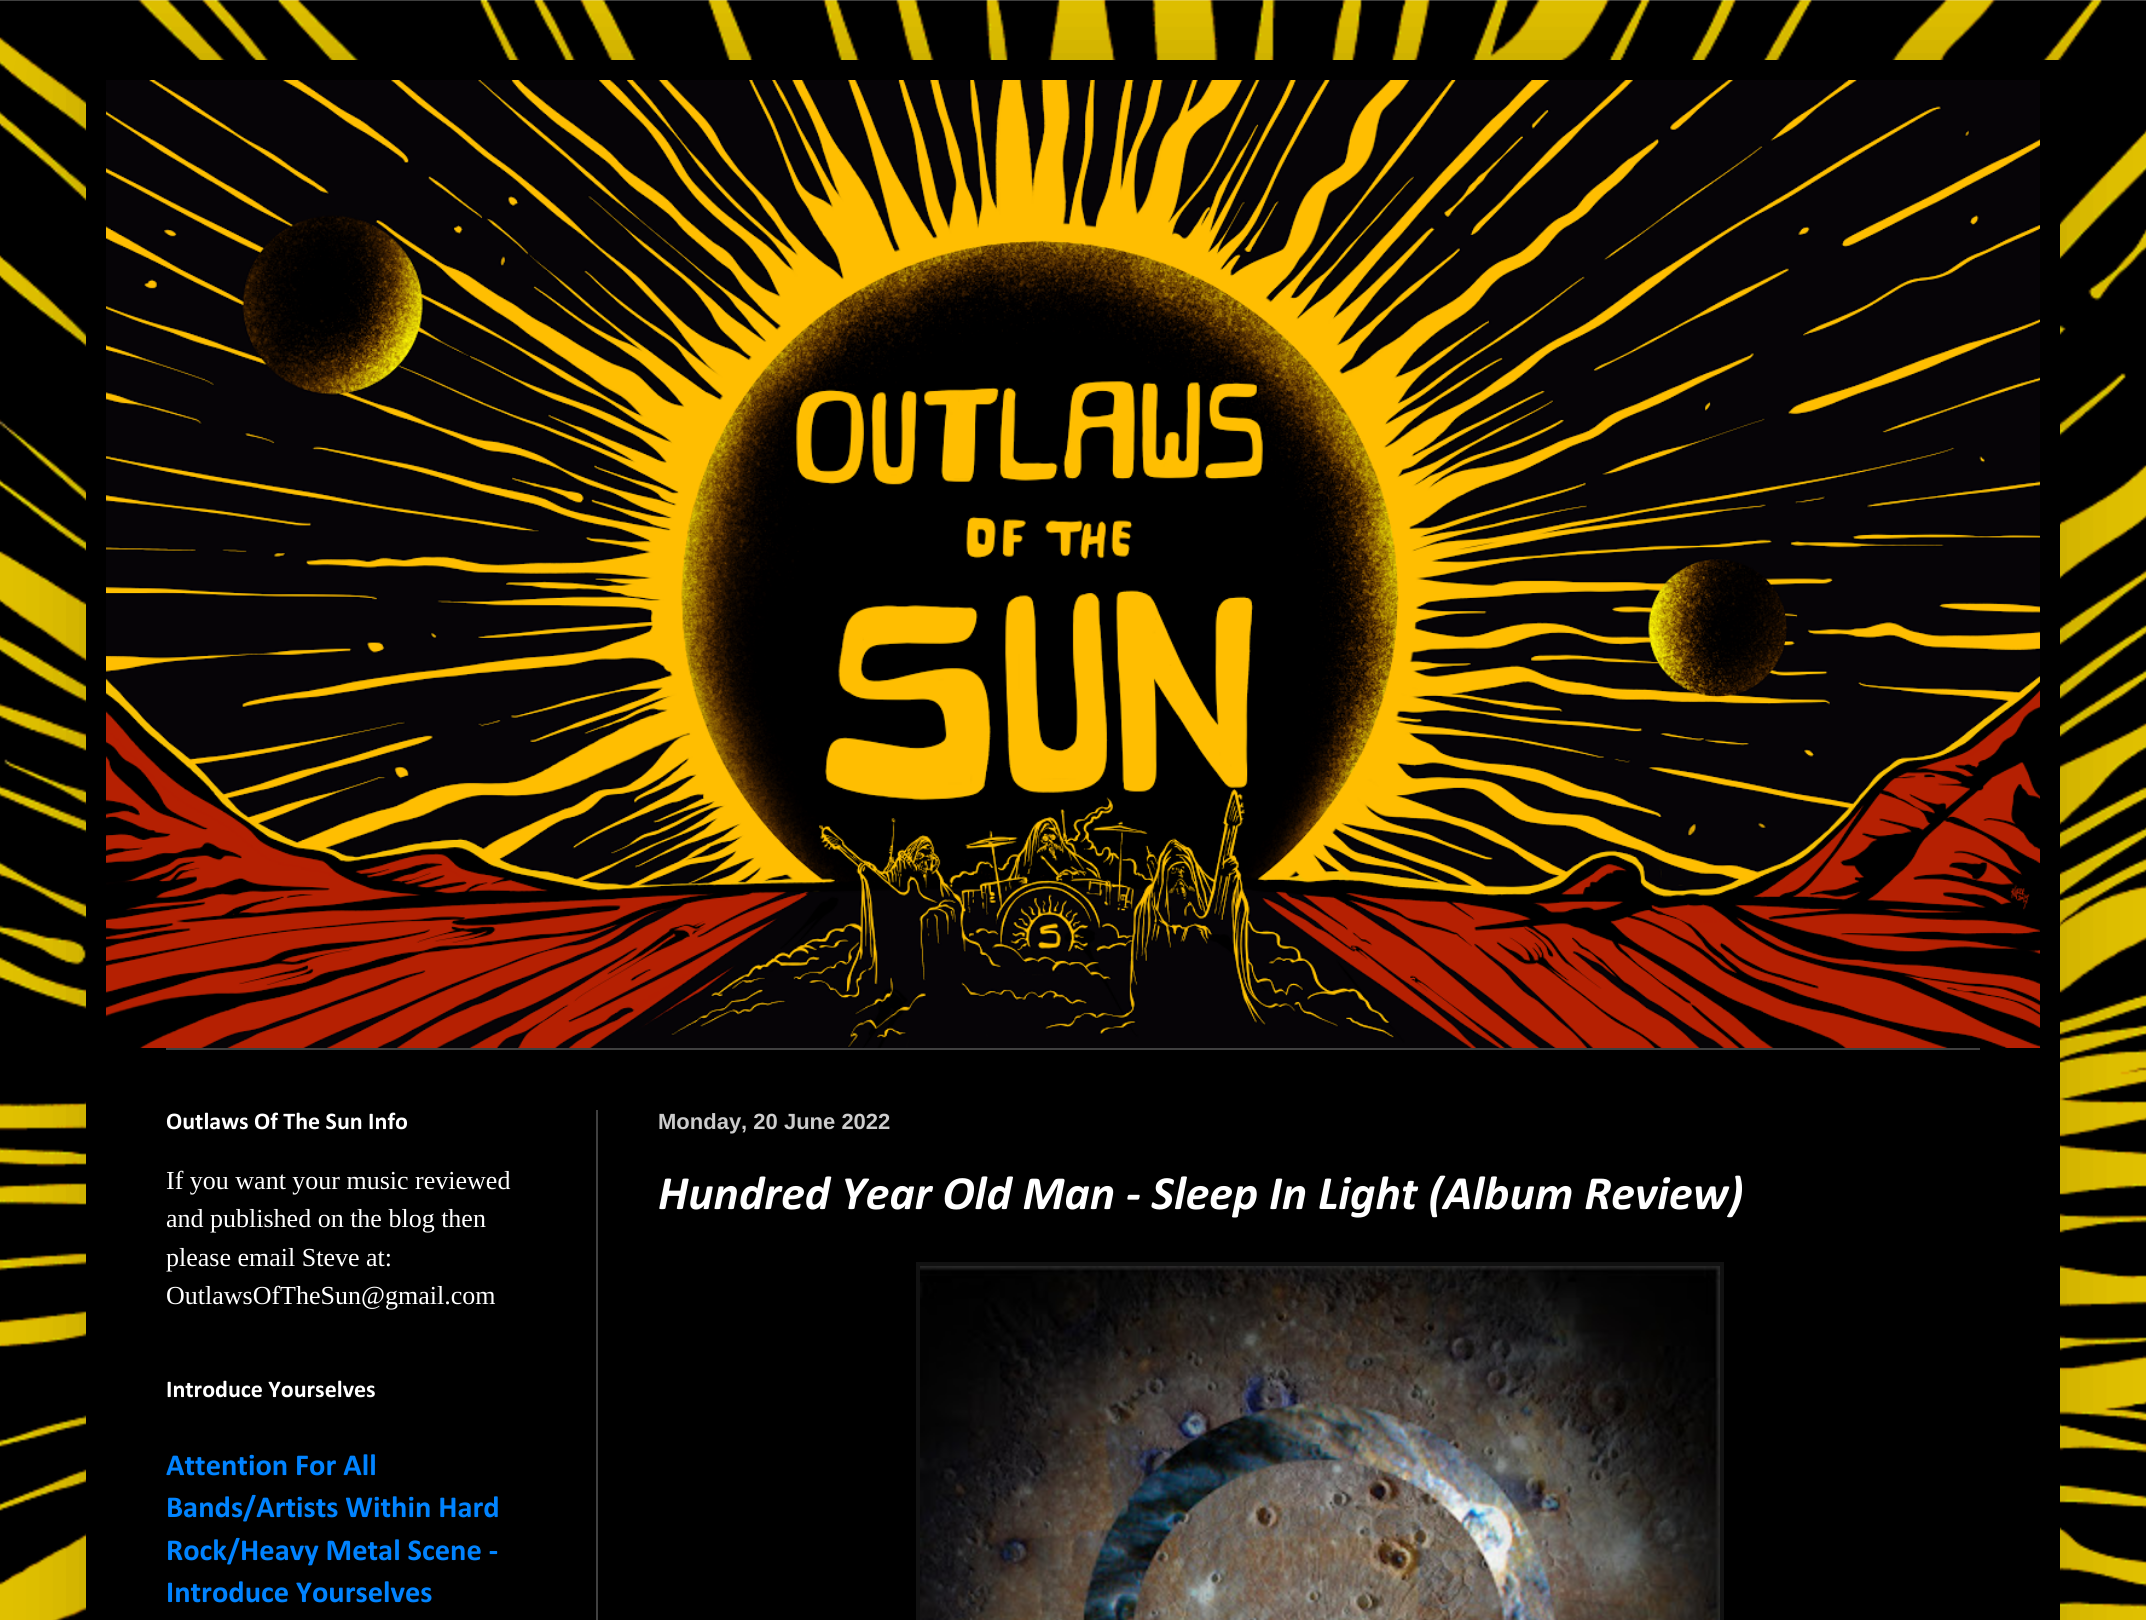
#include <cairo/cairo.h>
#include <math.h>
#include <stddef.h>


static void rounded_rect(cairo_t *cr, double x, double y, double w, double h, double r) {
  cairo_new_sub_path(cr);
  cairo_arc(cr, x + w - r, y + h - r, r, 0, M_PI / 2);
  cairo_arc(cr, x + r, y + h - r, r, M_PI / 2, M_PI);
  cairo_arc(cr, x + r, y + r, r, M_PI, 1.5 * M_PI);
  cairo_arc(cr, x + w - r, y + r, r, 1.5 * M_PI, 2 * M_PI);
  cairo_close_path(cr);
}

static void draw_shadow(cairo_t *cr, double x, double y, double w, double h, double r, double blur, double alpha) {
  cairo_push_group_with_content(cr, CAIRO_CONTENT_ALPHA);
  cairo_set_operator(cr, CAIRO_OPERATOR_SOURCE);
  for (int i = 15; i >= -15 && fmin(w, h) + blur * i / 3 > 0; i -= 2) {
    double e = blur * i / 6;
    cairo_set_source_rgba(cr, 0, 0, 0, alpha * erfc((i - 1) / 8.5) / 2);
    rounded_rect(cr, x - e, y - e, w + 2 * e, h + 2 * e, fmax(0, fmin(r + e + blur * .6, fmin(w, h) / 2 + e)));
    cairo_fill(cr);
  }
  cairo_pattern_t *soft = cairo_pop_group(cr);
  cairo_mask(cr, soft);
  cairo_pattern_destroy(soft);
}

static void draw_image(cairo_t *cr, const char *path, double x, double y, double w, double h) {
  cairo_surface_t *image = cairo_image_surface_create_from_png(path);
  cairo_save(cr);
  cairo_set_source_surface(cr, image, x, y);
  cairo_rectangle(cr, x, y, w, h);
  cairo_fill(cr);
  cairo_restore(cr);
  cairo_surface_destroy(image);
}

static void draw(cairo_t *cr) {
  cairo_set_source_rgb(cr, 1, 1, 1);
  cairo_paint(cr);
  draw_image(cr, "images/1.png", 0, 0, 2146, 1620);
  cairo_set_source_rgb(cr, 0, 0, 0);
  draw_shadow(cr, 86, 60, 1974, 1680, 0, 40, 0.15);
  cairo_set_source_rgb(cr, 0, 0, 0);
  cairo_rectangle(cr, 86, 60, 1974, 1560);
  cairo_fill(cr);
  draw_image(cr, "images/2.png", 106, 80, 1934, 968);
  cairo_set_source_rgb(cr, 64 / 255.0, 64 / 255.0, 64 / 255.0);
  cairo_rectangle(cr, 166, 1048, 1814, 2);
  cairo_fill(cr);
  cairo_rectangle(cr, 596, 1110, 2, 510);
  cairo_fill(cr);
  cairo_set_source_rgb(cr, 17 / 255.0, 17 / 255.0, 17 / 255.0);
  cairo_rectangle(cr, 916, 1262, 808, 358);
  cairo_fill(cr);
  draw_image(cr, "images/3.png", 920, 1266, 800, 354);
  cairo_select_font_face(cr, "Calibri", CAIRO_FONT_SLANT_NORMAL, CAIRO_FONT_WEIGHT_BOLD);
  cairo_set_font_size(cr, 24);
  cairo_set_source_rgb(cr, 1, 1, 1);
  cairo_move_to(cr, 166, 1129);
  cairo_show_text(cr, "Outlaws Of The Sun Info");
  cairo_select_font_face(cr, "Liberation Serif", CAIRO_FONT_SLANT_NORMAL, CAIRO_FONT_WEIGHT_NORMAL);
  cairo_set_font_size(cr, 26);
  cairo_move_to(cr, 166, 1189);
  cairo_show_text(cr, "If you want your music reviewed");
  cairo_move_to(cr, 166, 1227);
  cairo_show_text(cr, "and published on the blog then");
  cairo_move_to(cr, 166, 1266);
  cairo_show_text(cr, "please email Steve at:");
  cairo_move_to(cr, 166, 1304);
  cairo_show_text(cr, "OutlawsOfTheSun@gmail.com");
  cairo_select_font_face(cr, "Calibri", CAIRO_FONT_SLANT_NORMAL, CAIRO_FONT_WEIGHT_BOLD);
  cairo_set_font_size(cr, 24);
  cairo_move_to(cr, 166, 1397);
  cairo_show_text(cr, "Introduce Yourselves");
  cairo_set_font_size(cr, 30.5);
  cairo_set_source_rgb(cr, 0, 131 / 255.0, 1);
  cairo_move_to(cr, 166, 1475);
  cairo_show_text(cr, "Attention For All");
  cairo_move_to(cr, 166, 1517);
  cairo_show_text(cr, "Bands/Artists Within Hard");
  cairo_move_to(cr, 166, 1560);
  cairo_show_text(cr, "Rock/Heavy Metal Scene -");
  cairo_move_to(cr, 166, 1602);
  cairo_show_text(cr, "Introduce Yourselves");
  cairo_select_font_face(cr, "Liberation Sans", CAIRO_FONT_SLANT_NORMAL, CAIRO_FONT_WEIGHT_BOLD);
  cairo_set_font_size(cr, 22);
  cairo_set_source_rgb(cr, 204 / 255.0, 204 / 255.0, 204 / 255.0);
  cairo_move_to(cr, 658, 1129);
  cairo_show_text(cr, "Monday, 20 June 2022");
  cairo_select_font_face(cr, "Calibri", CAIRO_FONT_SLANT_ITALIC, CAIRO_FONT_WEIGHT_BOLD);
  cairo_set_font_size(cr, 48);
  cairo_set_source_rgb(cr, 1, 1, 1);
  cairo_move_to(cr, 658, 1209);
  cairo_show_text(cr, "Hundred Year Old Man - Sleep In Light (Album Review)");
}

int main(void) {
  cairo_surface_t *surface = cairo_image_surface_create(CAIRO_FORMAT_RGB24, 2146, 1620);
  cairo_t *cr = cairo_create(surface);
  cairo_font_options_t *options = cairo_font_options_create();
  cairo_font_options_set_hint_metrics(options, CAIRO_HINT_METRICS_OFF);
  cairo_font_options_set_hint_style(options, CAIRO_HINT_STYLE_NONE);
  cairo_set_font_options(cr, options);
  cairo_set_miter_limit(cr, 4);
  draw(cr);
  cairo_surface_write_to_png(surface, "out.png");
  cairo_font_options_destroy(options);
  cairo_destroy(cr);
  cairo_surface_destroy(surface);
  return 0;
}
